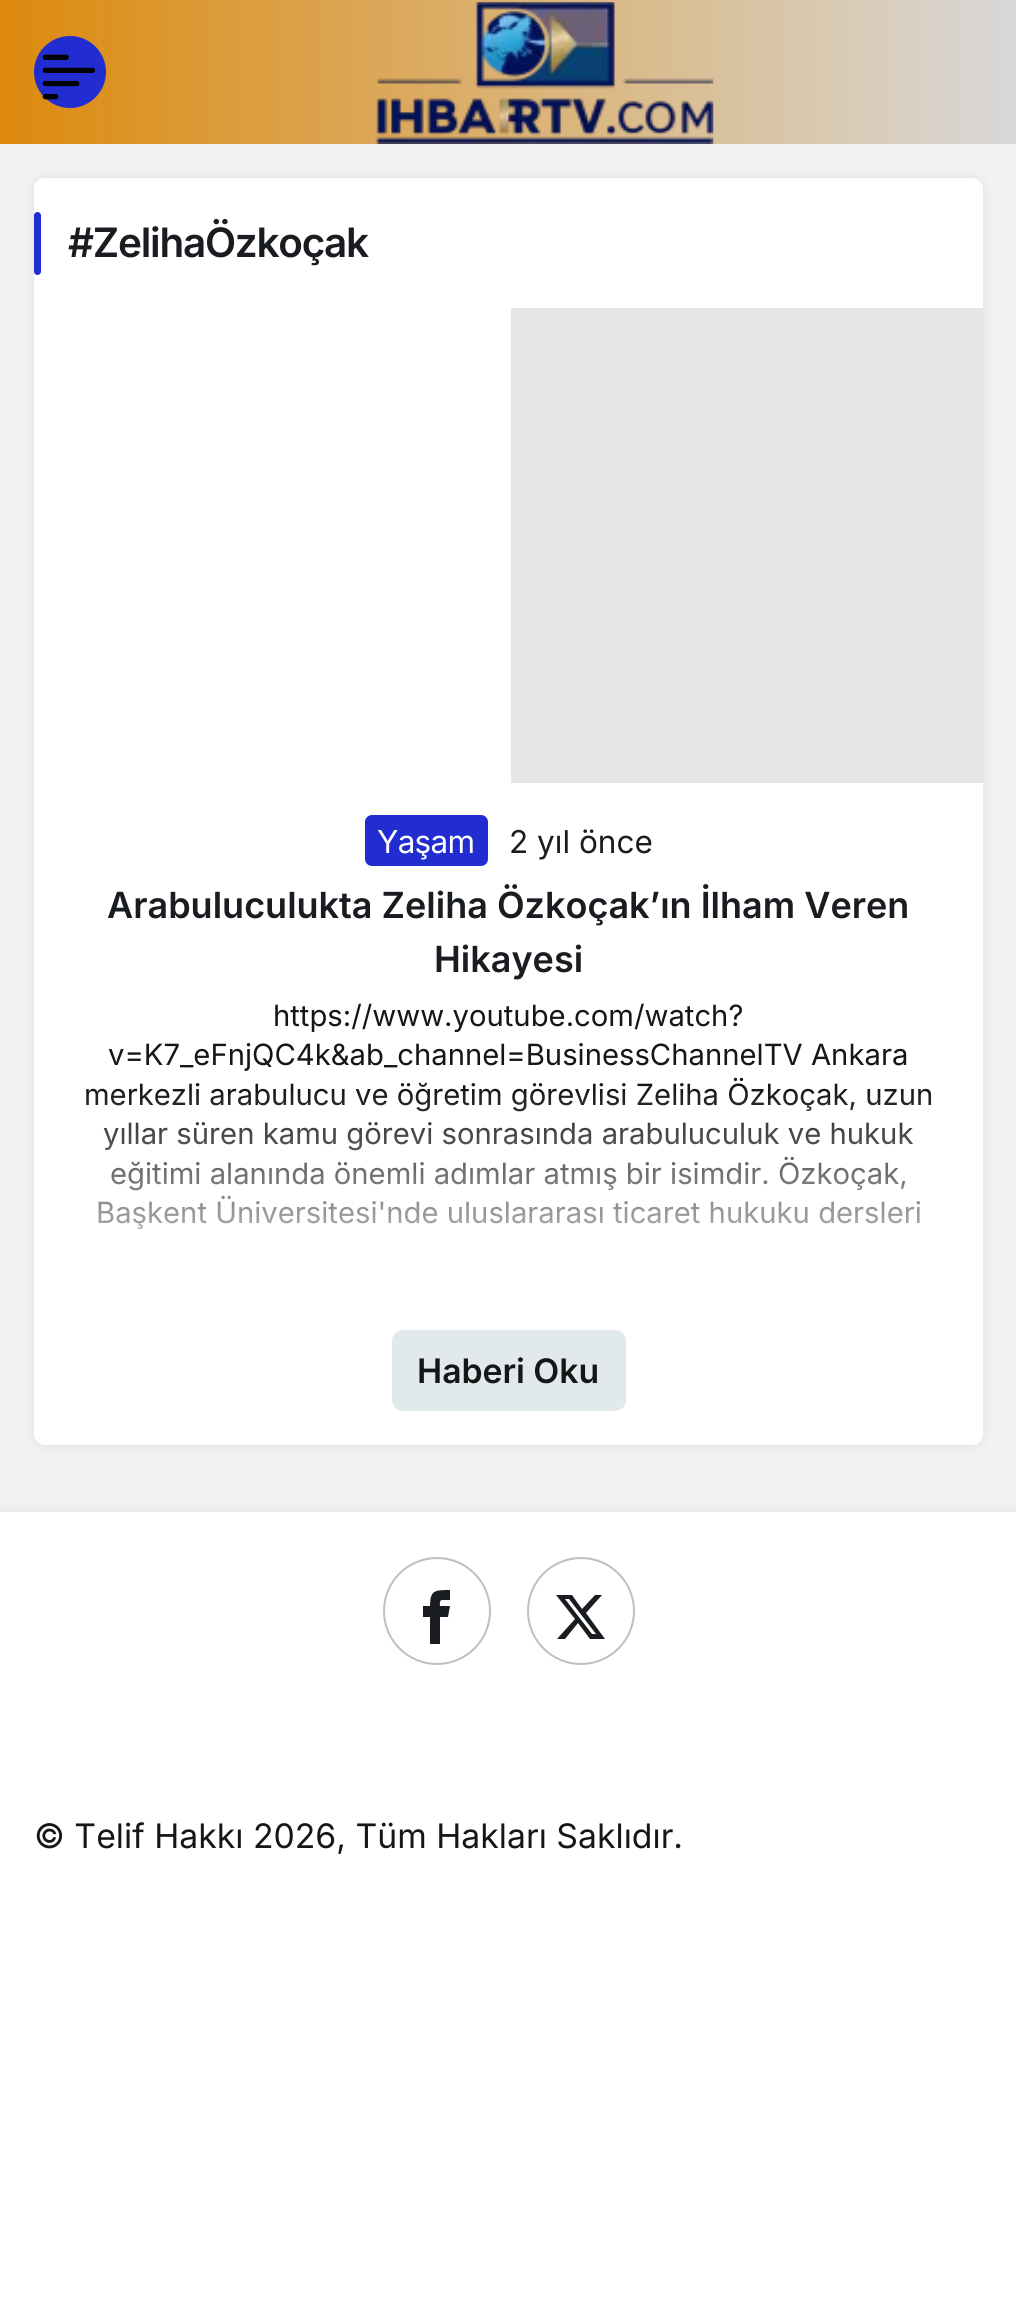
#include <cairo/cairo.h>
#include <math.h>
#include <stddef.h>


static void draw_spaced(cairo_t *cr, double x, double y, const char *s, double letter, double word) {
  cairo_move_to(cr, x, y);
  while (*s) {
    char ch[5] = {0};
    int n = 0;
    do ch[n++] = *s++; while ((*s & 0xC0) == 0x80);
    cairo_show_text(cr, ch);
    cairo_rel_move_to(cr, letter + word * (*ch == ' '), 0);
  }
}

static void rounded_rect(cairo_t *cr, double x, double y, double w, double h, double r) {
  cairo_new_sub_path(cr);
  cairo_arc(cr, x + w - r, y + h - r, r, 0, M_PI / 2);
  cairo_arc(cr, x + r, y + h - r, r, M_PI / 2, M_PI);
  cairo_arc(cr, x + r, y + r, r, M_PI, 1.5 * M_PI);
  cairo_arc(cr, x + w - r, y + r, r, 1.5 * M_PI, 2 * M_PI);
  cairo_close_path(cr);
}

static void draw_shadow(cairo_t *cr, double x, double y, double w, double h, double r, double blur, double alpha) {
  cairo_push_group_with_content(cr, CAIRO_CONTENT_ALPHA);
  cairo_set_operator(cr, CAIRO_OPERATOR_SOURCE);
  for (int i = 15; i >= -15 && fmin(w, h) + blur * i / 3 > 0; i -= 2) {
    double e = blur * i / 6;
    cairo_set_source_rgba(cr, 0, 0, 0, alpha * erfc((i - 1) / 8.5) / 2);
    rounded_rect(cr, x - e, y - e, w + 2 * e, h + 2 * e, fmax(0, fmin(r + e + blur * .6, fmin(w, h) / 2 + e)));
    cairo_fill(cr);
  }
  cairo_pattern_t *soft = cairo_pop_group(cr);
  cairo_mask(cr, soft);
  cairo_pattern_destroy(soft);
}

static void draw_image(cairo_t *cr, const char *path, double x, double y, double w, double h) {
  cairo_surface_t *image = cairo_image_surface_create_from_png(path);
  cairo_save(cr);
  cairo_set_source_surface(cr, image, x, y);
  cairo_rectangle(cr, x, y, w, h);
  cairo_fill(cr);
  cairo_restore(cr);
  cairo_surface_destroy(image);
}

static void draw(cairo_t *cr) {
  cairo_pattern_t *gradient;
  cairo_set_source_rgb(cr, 1, 1, 1);
  cairo_paint(cr);
  cairo_set_source_rgb(cr, 242 / 255.0, 242 / 255.0, 243 / 255.0);
  cairo_rectangle(cr, 0, 144, 1016, 1368);
  cairo_fill(cr);
  gradient = cairo_pattern_create_linear(0, 72, 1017, 72);
  cairo_pattern_add_color_stop_rgba(gradient, 0, 221 / 255.0, 138 / 255.0, 13 / 255.0, 1);
  cairo_pattern_add_color_stop_rgba(gradient, 1, 216 / 255.0, 216 / 255.0, 216 / 255.0, 1);
  cairo_set_source(cr, gradient);
  cairo_pattern_destroy(gradient);
  cairo_rectangle(cr, 0, 0, 1016, 144);
  cairo_fill(cr);
  cairo_set_source_rgb(cr, 33 / 255.0, 45 / 255.0, 209 / 255.0);
  cairo_arc(cr, 70, 72, 36, 0, 2 * M_PI);
  cairo_fill(cr);
  draw_image(cr, "images/1.png", 42, 54, 54, 46);
  draw_image(cr, "images/2.png", 375, 2, 339, 142);
  cairo_set_source_rgb(cr, 50 / 255.0, 53 / 255.0, 61 / 255.0);
  draw_shadow(cr, 34, 178, 949, 1267, 11, 5.5, 0.1);
  cairo_set_source_rgb(cr, 1, 1, 1);
  rounded_rect(cr, 34, 178, 949, 1267, 11);
  cairo_fill(cr);
  cairo_set_source_rgb(cr, 33 / 255.0, 45 / 255.0, 209 / 255.0);
  rounded_rect(cr, 34, 212, 7, 63, 3.5);
  cairo_fill(cr);
  cairo_set_source_rgb(cr, 230 / 255.0, 230 / 255.0, 230 / 255.0);
  cairo_rectangle(cr, 511, 308, 472, 475);
  cairo_fill(cr);
  cairo_set_source_rgb(cr, 33 / 255.0, 45 / 255.0, 209 / 255.0);
  rounded_rect(cr, 365, 815, 123, 51, 7);
  cairo_fill(cr);
  cairo_set_source_rgb(cr, 225 / 255.0, 233 / 255.0, 237 / 255.0);
  rounded_rect(cr, 392, 1330, 234, 81, 11);
  cairo_fill(cr);
  cairo_save(cr);
  cairo_rectangle(cr, 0, 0, 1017, 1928);
  cairo_clip(cr);
  cairo_set_source_rgb(cr, 50 / 255.0, 53 / 255.0, 61 / 255.0);
  draw_shadow(cr, 0, 1512, 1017, 416, 0, 5.5, 0.1);
  cairo_restore(cr);
  cairo_set_source_rgb(cr, 1, 1, 1);
  cairo_rectangle(cr, 0, 1512, 1016, 416);
  cairo_fill(cr);
  cairo_arc(cr, 437, 1611, 53, 0, 2 * M_PI);
  cairo_set_source_rgb(cr, 191 / 255.0, 191 / 255.0, 191 / 255.0);
  cairo_stroke(cr);
  cairo_set_source_rgb(cr, 25 / 255.0, 28 / 255.0, 32 / 255.0);
  cairo_new_path(cr);
  cairo_move_to(cr, 442, 1600);
  cairo_line_to(cr, 450, 1600);
  cairo_line_to(cr, 450, 1590);
  cairo_curve_to(cr, 435, 1590, 430, 1590, 430, 1606);
  cairo_line_to(cr, 423, 1606);
  cairo_line_to(cr, 423, 1617);
  cairo_line_to(cr, 430, 1617);
  cairo_line_to(cr, 430, 1644);
  cairo_line_to(cr, 440, 1644);
  cairo_line_to(cr, 440, 1617);
  cairo_line_to(cr, 448, 1617);
  cairo_line_to(cr, 450, 1606);
  cairo_line_to(cr, 440, 1606);
  cairo_curve_to(cr, 440, 1605, 439, 1600, 442, 1600);
  cairo_close_path(cr);
  cairo_fill(cr);
  cairo_arc(cr, 581, 1611, 53, 0, 2 * M_PI);
  cairo_set_source_rgb(cr, 191 / 255.0, 191 / 255.0, 191 / 255.0);
  cairo_stroke(cr);
  cairo_set_source_rgb(cr, 25 / 255.0, 28 / 255.0, 32 / 255.0);
  cairo_new_path(cr);
  cairo_move_to(cr, 595, 1595);
  cairo_line_to(cr, 602, 1595);
  cairo_line_to(cr, 586, 1613);
  cairo_line_to(cr, 605, 1639);
  cairo_line_to(cr, 590, 1639);
  cairo_line_to(cr, 578, 1623);
  cairo_line_to(cr, 565, 1639);
  cairo_line_to(cr, 557, 1639);
  cairo_line_to(cr, 575, 1619);
  cairo_line_to(cr, 556, 1595);
  cairo_line_to(cr, 572, 1595);
  cairo_line_to(cr, 582, 1609);
  cairo_close_path(cr);
  cairo_move_to(cr, 592, 1634);
  cairo_line_to(cr, 596, 1634);
  cairo_line_to(cr, 569, 1599);
  cairo_line_to(cr, 565, 1599);
  cairo_close_path(cr);
  cairo_fill(cr);
  cairo_select_font_face(cr, "Inter SemiBold", CAIRO_FONT_SLANT_NORMAL, CAIRO_FONT_WEIGHT_NORMAL);
  cairo_set_font_size(cr, 40.5);
  draw_spaced(cr, 68, 257, "#ZelihaÖzkoçak", -1.25, 0);
  cairo_select_font_face(cr, "Inter", CAIRO_FONT_SLANT_NORMAL, CAIRO_FONT_WEIGHT_NORMAL);
  cairo_set_font_size(cr, 31.5);
  cairo_set_source_rgb(cr, 1, 1, 1);
  draw_spaced(cr, 377, 853, "Yaşam", -0.75, 0);
  cairo_set_source_rgb(cr, 25 / 255.0, 28 / 255.0, 32 / 255.0);
  cairo_move_to(cr, 509, 853);
  cairo_show_text(cr, "2 yıl önce");
  cairo_select_font_face(cr, "Inter SemiBold", CAIRO_FONT_SLANT_NORMAL, CAIRO_FONT_WEIGHT_NORMAL);
  cairo_set_font_size(cr, 36);
  cairo_move_to(cr, 107, 918);
  cairo_show_text(cr, "Arabuluculukta Zeliha Özkoçak’ın İlham Veren");
  cairo_move_to(cr, 434, 972);
  cairo_show_text(cr, "Hikayesi");
  cairo_select_font_face(cr, "Inter", CAIRO_FONT_SLANT_NORMAL, CAIRO_FONT_WEIGHT_NORMAL);
  cairo_set_font_size(cr, 29.25);
  cairo_set_source_rgb(cr, 22 / 255.0, 22 / 255.0, 22 / 255.0);
  cairo_move_to(cr, 273, 1026);
  cairo_show_text(cr, "https://www.youtube.com/watch?");
  cairo_move_to(cr, 108, 1065);
  cairo_show_text(cr, "v=K7_eFnjQC4k&ab_channel=BusinessChannelTV Ankara");
  cairo_move_to(cr, 84, 1105);
  cairo_show_text(cr, "merkezli arabulucu ve öğretim görevlisi Zeliha Özkoçak, uzun");
  cairo_move_to(cr, 103, 1144);
  cairo_show_text(cr, "yıllar süren kamu görevi sonrasında arabuluculuk ve hukuk");
  cairo_move_to(cr, 110, 1184);
  cairo_show_text(cr, "eğitimi alanında önemli adımlar atmış bir isimdir. Özkoçak,");
  cairo_move_to(cr, 96, 1223);
  cairo_show_text(cr, "Başkent Üniversitesi'nde uluslararası ticaret hukuku dersleri");
  gradient = cairo_pattern_create_linear(509, 1087, 509, 1312);
  cairo_pattern_add_color_stop_rgba(gradient, 0, 1, 1, 1, 0);
  cairo_pattern_add_color_stop_rgba(gradient, 1, 1, 1, 1, 1);
  cairo_set_source(cr, gradient);
  cairo_pattern_destroy(gradient);
  cairo_rectangle(cr, 86, 1092, 845, 137);
  cairo_fill(cr);
  cairo_select_font_face(cr, "Inter SemiBold", CAIRO_FONT_SLANT_NORMAL, CAIRO_FONT_WEIGHT_NORMAL);
  cairo_set_font_size(cr, 33.75);
  cairo_set_source_rgb(cr, 22 / 255.0, 22 / 255.0, 22 / 255.0);
  cairo_move_to(cr, 417, 1383);
  cairo_show_text(cr, "Haberi Oku");
  cairo_select_font_face(cr, "Inter", CAIRO_FONT_SLANT_NORMAL, CAIRO_FONT_WEIGHT_NORMAL);
  cairo_move_to(cr, 34, 1848);
  cairo_show_text(cr, "© Telif Hakkı 2026, Tüm Hakları Saklıdır.");
}

int main(void) {
  cairo_surface_t *surface = cairo_image_surface_create(CAIRO_FORMAT_RGB24, 1016, 2321);
  cairo_t *cr = cairo_create(surface);
  cairo_font_options_t *options = cairo_font_options_create();
  cairo_font_options_set_hint_metrics(options, CAIRO_HINT_METRICS_OFF);
  cairo_font_options_set_hint_style(options, CAIRO_HINT_STYLE_NONE);
  cairo_set_font_options(cr, options);
  cairo_set_miter_limit(cr, 4);
  draw(cr);
  cairo_surface_write_to_png(surface, "out.png");
  cairo_font_options_destroy(options);
  cairo_destroy(cr);
  cairo_surface_destroy(surface);
  return 0;
}
